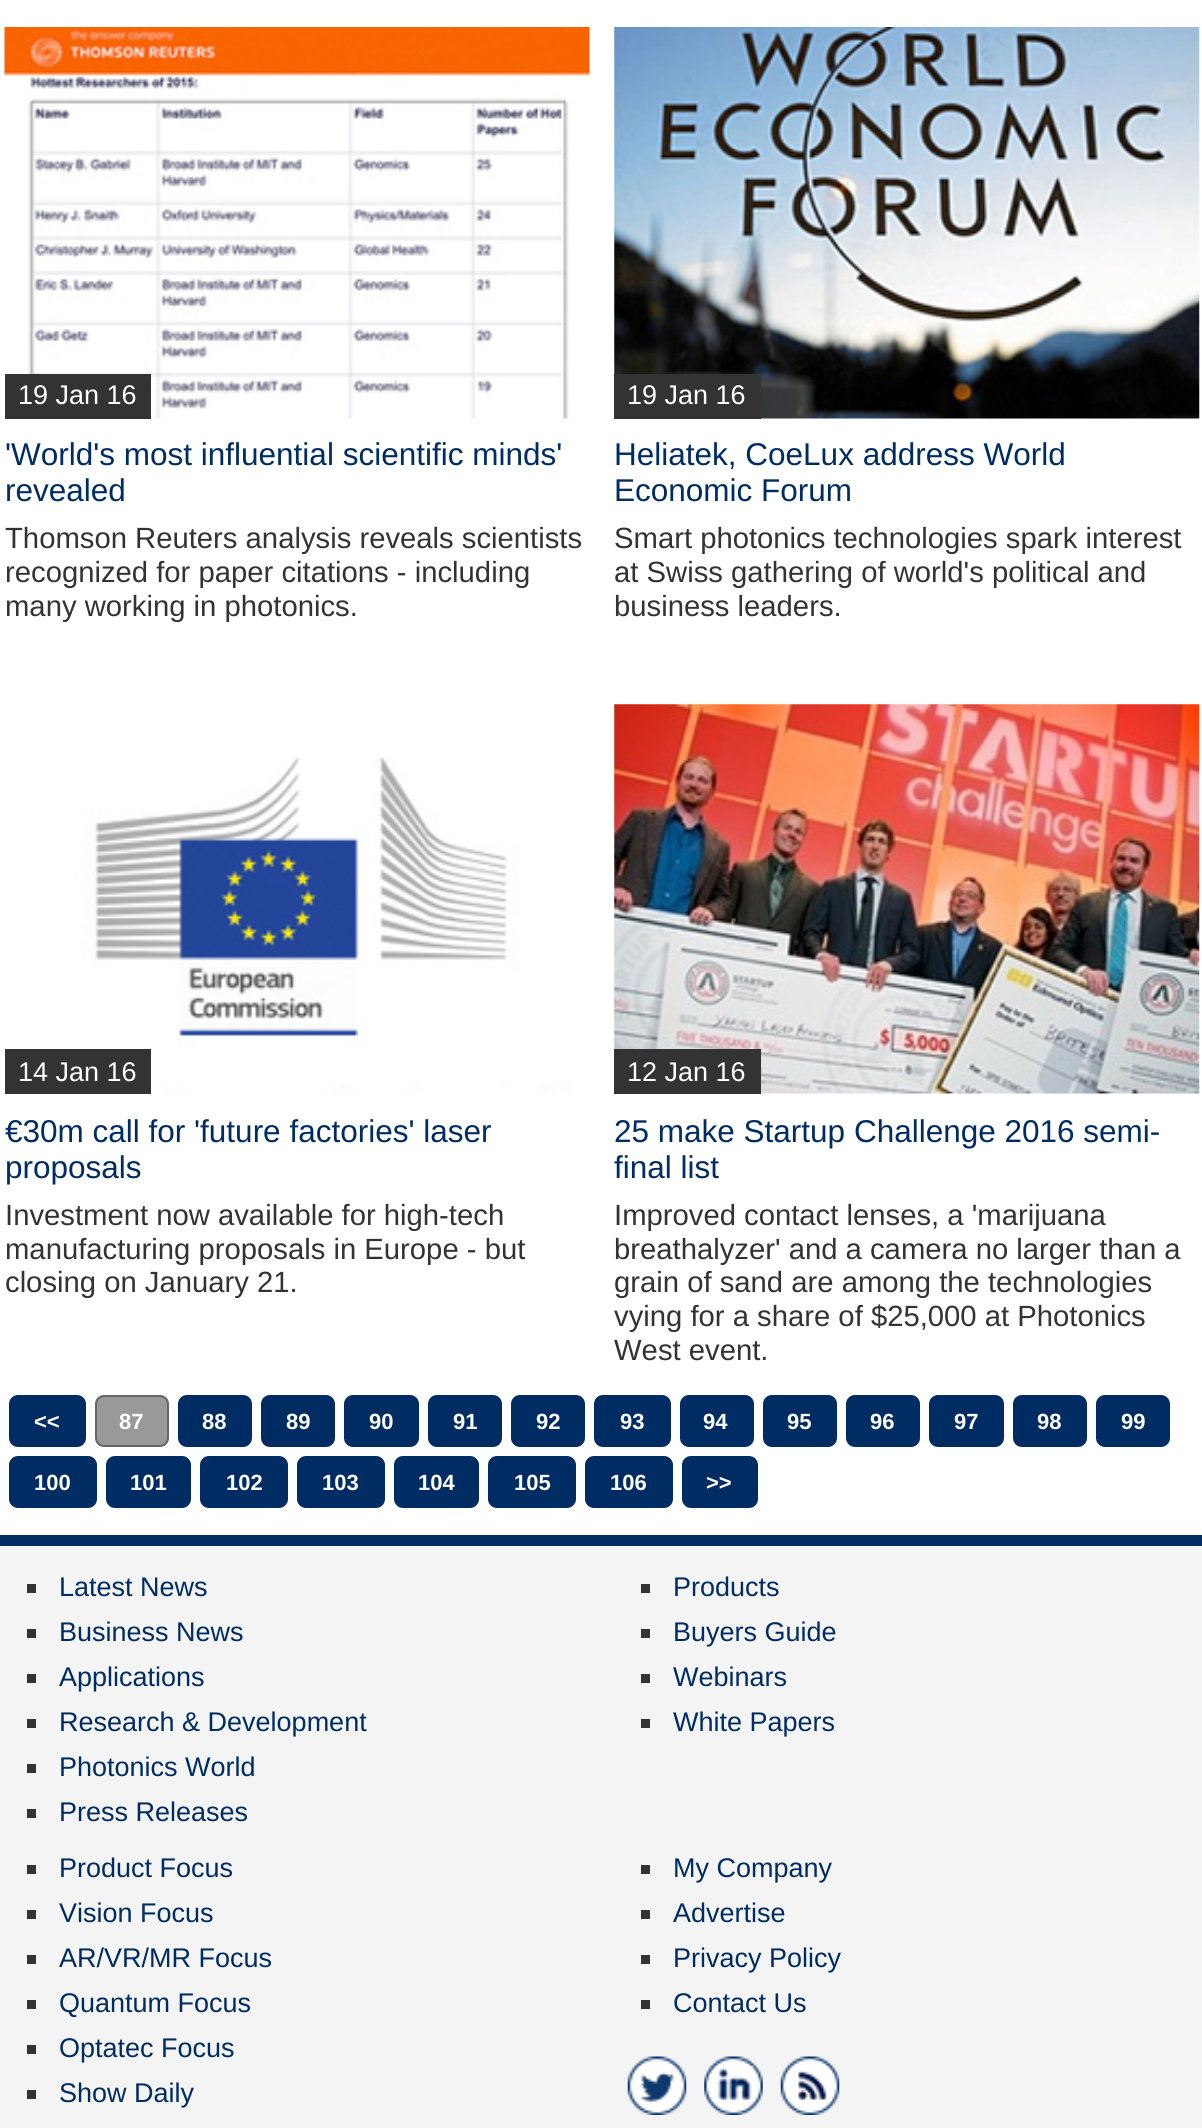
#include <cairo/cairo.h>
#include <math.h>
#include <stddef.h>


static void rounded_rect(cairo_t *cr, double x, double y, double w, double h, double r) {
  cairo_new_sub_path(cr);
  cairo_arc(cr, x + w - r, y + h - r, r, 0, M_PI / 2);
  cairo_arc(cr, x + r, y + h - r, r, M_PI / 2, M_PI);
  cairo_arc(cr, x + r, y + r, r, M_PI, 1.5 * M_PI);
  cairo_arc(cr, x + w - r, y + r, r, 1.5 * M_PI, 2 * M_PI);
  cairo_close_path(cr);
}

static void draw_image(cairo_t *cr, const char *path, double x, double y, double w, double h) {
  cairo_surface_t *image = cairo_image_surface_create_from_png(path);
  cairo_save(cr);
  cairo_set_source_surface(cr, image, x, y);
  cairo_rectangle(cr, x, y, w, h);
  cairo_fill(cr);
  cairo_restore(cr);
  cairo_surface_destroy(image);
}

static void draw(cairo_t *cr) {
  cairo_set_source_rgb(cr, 1, 1, 1);
  cairo_paint(cr);
  draw_image(cr, "images/1.png", 4, 27, 586, 392);
  cairo_set_source_rgb(cr, 51 / 255.0, 51 / 255.0, 51 / 255.0);
  cairo_rectangle(cr, 5, 374, 146, 45);
  cairo_fill(cr);
  draw_image(cr, "images/2.png", 614, 27, 586, 392);
  cairo_rectangle(cr, 614, 374, 147, 45);
  cairo_fill(cr);
  draw_image(cr, "images/3.png", 44, 756, 528, 337);
  cairo_rectangle(cr, 5, 1049, 146, 45);
  cairo_fill(cr);
  draw_image(cr, "images/4.png", 614, 704, 586, 390);
  cairo_rectangle(cr, 614, 1049, 147, 45);
  cairo_fill(cr);
  cairo_set_source_rgb(cr, 0, 44 / 255.0, 100 / 255.0);
  rounded_rect(cr, 10, 1396, 75, 50, 8);
  cairo_fill_preserve(cr);
  cairo_stroke(cr);
  cairo_set_source_rgb(cr, 153 / 255.0, 153 / 255.0, 153 / 255.0);
  rounded_rect(cr, 96, 1396, 72, 50, 8);
  cairo_fill_preserve(cr);
  cairo_set_source_rgb(cr, 102 / 255.0, 102 / 255.0, 102 / 255.0);
  cairo_stroke(cr);
  cairo_set_source_rgb(cr, 0, 44 / 255.0, 100 / 255.0);
  rounded_rect(cr, 179, 1396, 72, 50, 8);
  cairo_fill_preserve(cr);
  cairo_stroke(cr);
  rounded_rect(cr, 262, 1396, 72, 50, 8);
  cairo_fill_preserve(cr);
  cairo_stroke(cr);
  rounded_rect(cr, 345, 1396, 73, 50, 8);
  cairo_fill_preserve(cr);
  cairo_stroke(cr);
  rounded_rect(cr, 429, 1396, 72, 50, 8);
  cairo_fill_preserve(cr);
  cairo_stroke(cr);
  rounded_rect(cr, 512, 1396, 72, 50, 8);
  cairo_fill_preserve(cr);
  cairo_stroke(cr);
  rounded_rect(cr, 595, 1396, 75, 50, 8);
  cairo_fill_preserve(cr);
  cairo_stroke(cr);
  rounded_rect(cr, 681, 1396, 72, 50, 8);
  cairo_fill_preserve(cr);
  cairo_stroke(cr);
  rounded_rect(cr, 764, 1396, 72, 50, 8);
  cairo_fill_preserve(cr);
  cairo_stroke(cr);
  rounded_rect(cr, 847, 1396, 72, 50, 8);
  cairo_fill_preserve(cr);
  cairo_stroke(cr);
  rounded_rect(cr, 930, 1396, 73, 50, 8);
  cairo_fill_preserve(cr);
  cairo_stroke(cr);
  rounded_rect(cr, 1014, 1396, 72, 50, 8);
  cairo_fill_preserve(cr);
  cairo_stroke(cr);
  rounded_rect(cr, 1097, 1396, 72, 50, 8);
  cairo_fill_preserve(cr);
  cairo_stroke(cr);
  rounded_rect(cr, 10, 1457, 86, 50, 8);
  cairo_fill_preserve(cr);
  cairo_stroke(cr);
  rounded_rect(cr, 107, 1457, 83, 50, 8);
  cairo_fill_preserve(cr);
  cairo_stroke(cr);
  rounded_rect(cr, 201, 1457, 86, 50, 8);
  cairo_fill_preserve(cr);
  cairo_stroke(cr);
  rounded_rect(cr, 298, 1457, 86, 50, 8);
  cairo_fill_preserve(cr);
  cairo_stroke(cr);
  rounded_rect(cr, 395, 1457, 83, 50, 8);
  cairo_fill_preserve(cr);
  cairo_stroke(cr);
  rounded_rect(cr, 489, 1457, 86, 50, 8);
  cairo_fill_preserve(cr);
  cairo_stroke(cr);
  rounded_rect(cr, 586, 1457, 86, 50, 8);
  cairo_fill_preserve(cr);
  cairo_stroke(cr);
  rounded_rect(cr, 683, 1457, 74, 50, 8);
  cairo_fill_preserve(cr);
  cairo_stroke(cr);
  cairo_set_source_rgb(cr, 244 / 255.0, 244 / 255.0, 244 / 255.0);
  cairo_rectangle(cr, 0, 1546, 1202, 582);
  cairo_fill(cr);
  cairo_set_source_rgb(cr, 0, 44 / 255.0, 100 / 255.0);
  cairo_rectangle(cr, 0, 1535, 1202, 11);
  cairo_fill(cr);
  cairo_set_source_rgb(cr, 51 / 255.0, 51 / 255.0, 51 / 255.0);
  cairo_rectangle(cr, 27, 1584, 9, 9);
  cairo_fill(cr);
  cairo_rectangle(cr, 27, 1629, 9, 9);
  cairo_fill(cr);
  cairo_rectangle(cr, 27, 1674, 9, 9);
  cairo_fill(cr);
  cairo_rectangle(cr, 27, 1719, 9, 9);
  cairo_fill(cr);
  cairo_rectangle(cr, 27, 1764, 9, 9);
  cairo_fill(cr);
  cairo_rectangle(cr, 27, 1809, 9, 9);
  cairo_fill(cr);
  cairo_rectangle(cr, 641, 1584, 9, 9);
  cairo_fill(cr);
  cairo_rectangle(cr, 641, 1629, 9, 9);
  cairo_fill(cr);
  cairo_rectangle(cr, 641, 1674, 9, 9);
  cairo_fill(cr);
  cairo_rectangle(cr, 641, 1719, 9, 9);
  cairo_fill(cr);
  cairo_rectangle(cr, 27, 1865, 9, 9);
  cairo_fill(cr);
  cairo_rectangle(cr, 27, 1910, 9, 9);
  cairo_fill(cr);
  cairo_rectangle(cr, 27, 1955, 9, 9);
  cairo_fill(cr);
  cairo_rectangle(cr, 27, 2000, 9, 9);
  cairo_fill(cr);
  cairo_rectangle(cr, 27, 2045, 9, 9);
  cairo_fill(cr);
  cairo_rectangle(cr, 27, 2090, 9, 9);
  cairo_fill(cr);
  cairo_rectangle(cr, 641, 1865, 9, 9);
  cairo_fill(cr);
  cairo_rectangle(cr, 641, 1910, 9, 9);
  cairo_fill(cr);
  cairo_rectangle(cr, 641, 1955, 9, 9);
  cairo_fill(cr);
  cairo_rectangle(cr, 641, 2000, 9, 9);
  cairo_fill(cr);
  draw_image(cr, "images/5.png", 627, 2056, 60, 59);
  draw_image(cr, "images/6.png", 704, 2056, 59, 59);
  draw_image(cr, "images/7.png", 780, 2056, 60, 59);
  cairo_select_font_face(cr, "Liberation Sans", CAIRO_FONT_SLANT_NORMAL, CAIRO_FONT_WEIGHT_NORMAL);
  cairo_set_font_size(cr, 27);
  cairo_set_source_rgb(cr, 1, 1, 1);
  cairo_move_to(cr, 18, 404);
  cairo_show_text(cr, "19 Jan 16");
  cairo_set_font_size(cr, 31.5);
  cairo_set_source_rgb(cr, 0, 44 / 255.0, 100 / 255.0);
  cairo_move_to(cr, 5, 465);
  cairo_show_text(cr, "'World's most influential scientific minds'");
  cairo_move_to(cr, 5, 501);
  cairo_show_text(cr, "revealed");
  cairo_set_font_size(cr, 29.25);
  cairo_set_source_rgb(cr, 51 / 255.0, 51 / 255.0, 51 / 255.0);
  cairo_move_to(cr, 5, 548);
  cairo_show_text(cr, "Thomson Reuters analysis reveals scientists");
  cairo_move_to(cr, 5, 582);
  cairo_show_text(cr, "recognized for paper citations - including");
  cairo_move_to(cr, 5, 616);
  cairo_show_text(cr, "many working in photonics.");
  cairo_set_font_size(cr, 27);
  cairo_set_source_rgb(cr, 1, 1, 1);
  cairo_move_to(cr, 627, 404);
  cairo_show_text(cr, "19 Jan 16");
  cairo_set_font_size(cr, 31.5);
  cairo_set_source_rgb(cr, 0, 44 / 255.0, 100 / 255.0);
  cairo_move_to(cr, 614, 465);
  cairo_show_text(cr, "Heliatek, CoeLux address World");
  cairo_move_to(cr, 614, 501);
  cairo_show_text(cr, "Economic Forum");
  cairo_set_font_size(cr, 29.25);
  cairo_set_source_rgb(cr, 51 / 255.0, 51 / 255.0, 51 / 255.0);
  cairo_move_to(cr, 614, 548);
  cairo_show_text(cr, "Smart photonics technologies spark interest");
  cairo_move_to(cr, 614, 582);
  cairo_show_text(cr, "at Swiss gathering of world's political and");
  cairo_move_to(cr, 614, 616);
  cairo_show_text(cr, "business leaders.");
  cairo_set_font_size(cr, 27);
  cairo_set_source_rgb(cr, 1, 1, 1);
  cairo_move_to(cr, 18, 1081);
  cairo_show_text(cr, "14 Jan 16");
  cairo_set_font_size(cr, 31.5);
  cairo_set_source_rgb(cr, 0, 44 / 255.0, 100 / 255.0);
  cairo_move_to(cr, 5, 1142);
  cairo_show_text(cr, "€30m call for 'future factories' laser");
  cairo_move_to(cr, 5, 1178);
  cairo_show_text(cr, "proposals");
  cairo_set_font_size(cr, 29.25);
  cairo_set_source_rgb(cr, 51 / 255.0, 51 / 255.0, 51 / 255.0);
  cairo_move_to(cr, 5, 1225);
  cairo_show_text(cr, "Investment now available for high-tech");
  cairo_move_to(cr, 5, 1259);
  cairo_show_text(cr, "manufacturing proposals in Europe - but");
  cairo_move_to(cr, 5, 1292);
  cairo_show_text(cr, "closing on January 21.");
  cairo_set_font_size(cr, 27);
  cairo_set_source_rgb(cr, 1, 1, 1);
  cairo_move_to(cr, 627, 1081);
  cairo_show_text(cr, "12 Jan 16");
  cairo_set_font_size(cr, 31.5);
  cairo_set_source_rgb(cr, 0, 44 / 255.0, 100 / 255.0);
  cairo_move_to(cr, 614, 1142);
  cairo_show_text(cr, "25 make Startup Challenge 2016 semi-");
  cairo_move_to(cr, 614, 1178);
  cairo_show_text(cr, "final list");
  cairo_set_font_size(cr, 29.25);
  cairo_set_source_rgb(cr, 51 / 255.0, 51 / 255.0, 51 / 255.0);
  cairo_move_to(cr, 614, 1225);
  cairo_show_text(cr, "Improved contact lenses, a 'marijuana");
  cairo_move_to(cr, 614, 1259);
  cairo_show_text(cr, "breathalyzer' and a camera no larger than a");
  cairo_move_to(cr, 614, 1292);
  cairo_show_text(cr, "grain of sand are among the technologies");
  cairo_move_to(cr, 614, 1326);
  cairo_show_text(cr, "vying for a share of $25,000 at Photonics");
  cairo_move_to(cr, 614, 1360);
  cairo_show_text(cr, "West event.");
  cairo_select_font_face(cr, "Liberation Sans", CAIRO_FONT_SLANT_NORMAL, CAIRO_FONT_WEIGHT_BOLD);
  cairo_set_font_size(cr, 22);
  cairo_set_source_rgb(cr, 1, 1, 1);
  cairo_move_to(cr, 34, 1429);
  cairo_show_text(cr, "<<");
  cairo_move_to(cr, 119, 1429);
  cairo_show_text(cr, "87");
  cairo_move_to(cr, 202, 1429);
  cairo_show_text(cr, "88");
  cairo_move_to(cr, 286, 1429);
  cairo_show_text(cr, "89");
  cairo_move_to(cr, 369, 1429);
  cairo_show_text(cr, "90");
  cairo_move_to(cr, 453, 1429);
  cairo_show_text(cr, "91");
  cairo_move_to(cr, 536, 1429);
  cairo_show_text(cr, "92");
  cairo_move_to(cr, 620, 1429);
  cairo_show_text(cr, "93");
  cairo_move_to(cr, 703, 1429);
  cairo_show_text(cr, "94");
  cairo_move_to(cr, 787, 1429);
  cairo_show_text(cr, "95");
  cairo_move_to(cr, 870, 1429);
  cairo_show_text(cr, "96");
  cairo_move_to(cr, 954, 1429);
  cairo_show_text(cr, "97");
  cairo_move_to(cr, 1037, 1429);
  cairo_show_text(cr, "98");
  cairo_move_to(cr, 1121, 1429);
  cairo_show_text(cr, "99");
  cairo_move_to(cr, 34, 1490);
  cairo_show_text(cr, "100");
  cairo_move_to(cr, 130, 1490);
  cairo_show_text(cr, "101");
  cairo_move_to(cr, 226, 1490);
  cairo_show_text(cr, "102");
  cairo_move_to(cr, 322, 1490);
  cairo_show_text(cr, "103");
  cairo_move_to(cr, 418, 1490);
  cairo_show_text(cr, "104");
  cairo_move_to(cr, 514, 1490);
  cairo_show_text(cr, "105");
  cairo_move_to(cr, 610, 1490);
  cairo_show_text(cr, "106");
  cairo_move_to(cr, 706, 1490);
  cairo_show_text(cr, ">>");
  cairo_select_font_face(cr, "Liberation Sans", CAIRO_FONT_SLANT_NORMAL, CAIRO_FONT_WEIGHT_NORMAL);
  cairo_set_font_size(cr, 27);
  cairo_set_source_rgb(cr, 0, 44 / 255.0, 100 / 255.0);
  cairo_move_to(cr, 59, 1596);
  cairo_show_text(cr, "Latest News");
  cairo_move_to(cr, 59, 1641);
  cairo_show_text(cr, "Business News");
  cairo_move_to(cr, 59, 1686);
  cairo_show_text(cr, "Applications");
  cairo_move_to(cr, 59, 1731);
  cairo_show_text(cr, "Research & Development");
  cairo_move_to(cr, 59, 1776);
  cairo_show_text(cr, "Photonics World");
  cairo_move_to(cr, 59, 1821);
  cairo_show_text(cr, "Press Releases");
  cairo_move_to(cr, 673, 1596);
  cairo_show_text(cr, "Products");
  cairo_move_to(cr, 673, 1641);
  cairo_show_text(cr, "Buyers Guide");
  cairo_move_to(cr, 673, 1686);
  cairo_show_text(cr, "Webinars");
  cairo_move_to(cr, 673, 1731);
  cairo_show_text(cr, "White Papers");
  cairo_move_to(cr, 59, 1877);
  cairo_show_text(cr, "Product Focus");
  cairo_move_to(cr, 59, 1922);
  cairo_show_text(cr, "Vision Focus");
  cairo_move_to(cr, 59, 1967);
  cairo_show_text(cr, "AR/VR/MR Focus");
  cairo_move_to(cr, 59, 2012);
  cairo_show_text(cr, "Quantum Focus");
  cairo_move_to(cr, 59, 2057);
  cairo_show_text(cr, "Optatec Focus");
  cairo_move_to(cr, 59, 2102);
  cairo_show_text(cr, "Show Daily");
  cairo_move_to(cr, 673, 1877);
  cairo_show_text(cr, "My Company");
  cairo_move_to(cr, 673, 1922);
  cairo_show_text(cr, "Advertise");
  cairo_move_to(cr, 673, 1967);
  cairo_show_text(cr, "Privacy Policy");
  cairo_move_to(cr, 673, 2012);
  cairo_show_text(cr, "Contact Us");
}

int main(void) {
  cairo_surface_t *surface = cairo_image_surface_create(CAIRO_FORMAT_RGB24, 1202, 2128);
  cairo_t *cr = cairo_create(surface);
  cairo_font_options_t *options = cairo_font_options_create();
  cairo_font_options_set_hint_metrics(options, CAIRO_HINT_METRICS_OFF);
  cairo_font_options_set_hint_style(options, CAIRO_HINT_STYLE_NONE);
  cairo_set_font_options(cr, options);
  cairo_set_miter_limit(cr, 4);
  draw(cr);
  cairo_surface_write_to_png(surface, "out.png");
  cairo_font_options_destroy(options);
  cairo_destroy(cr);
  cairo_surface_destroy(surface);
  return 0;
}
